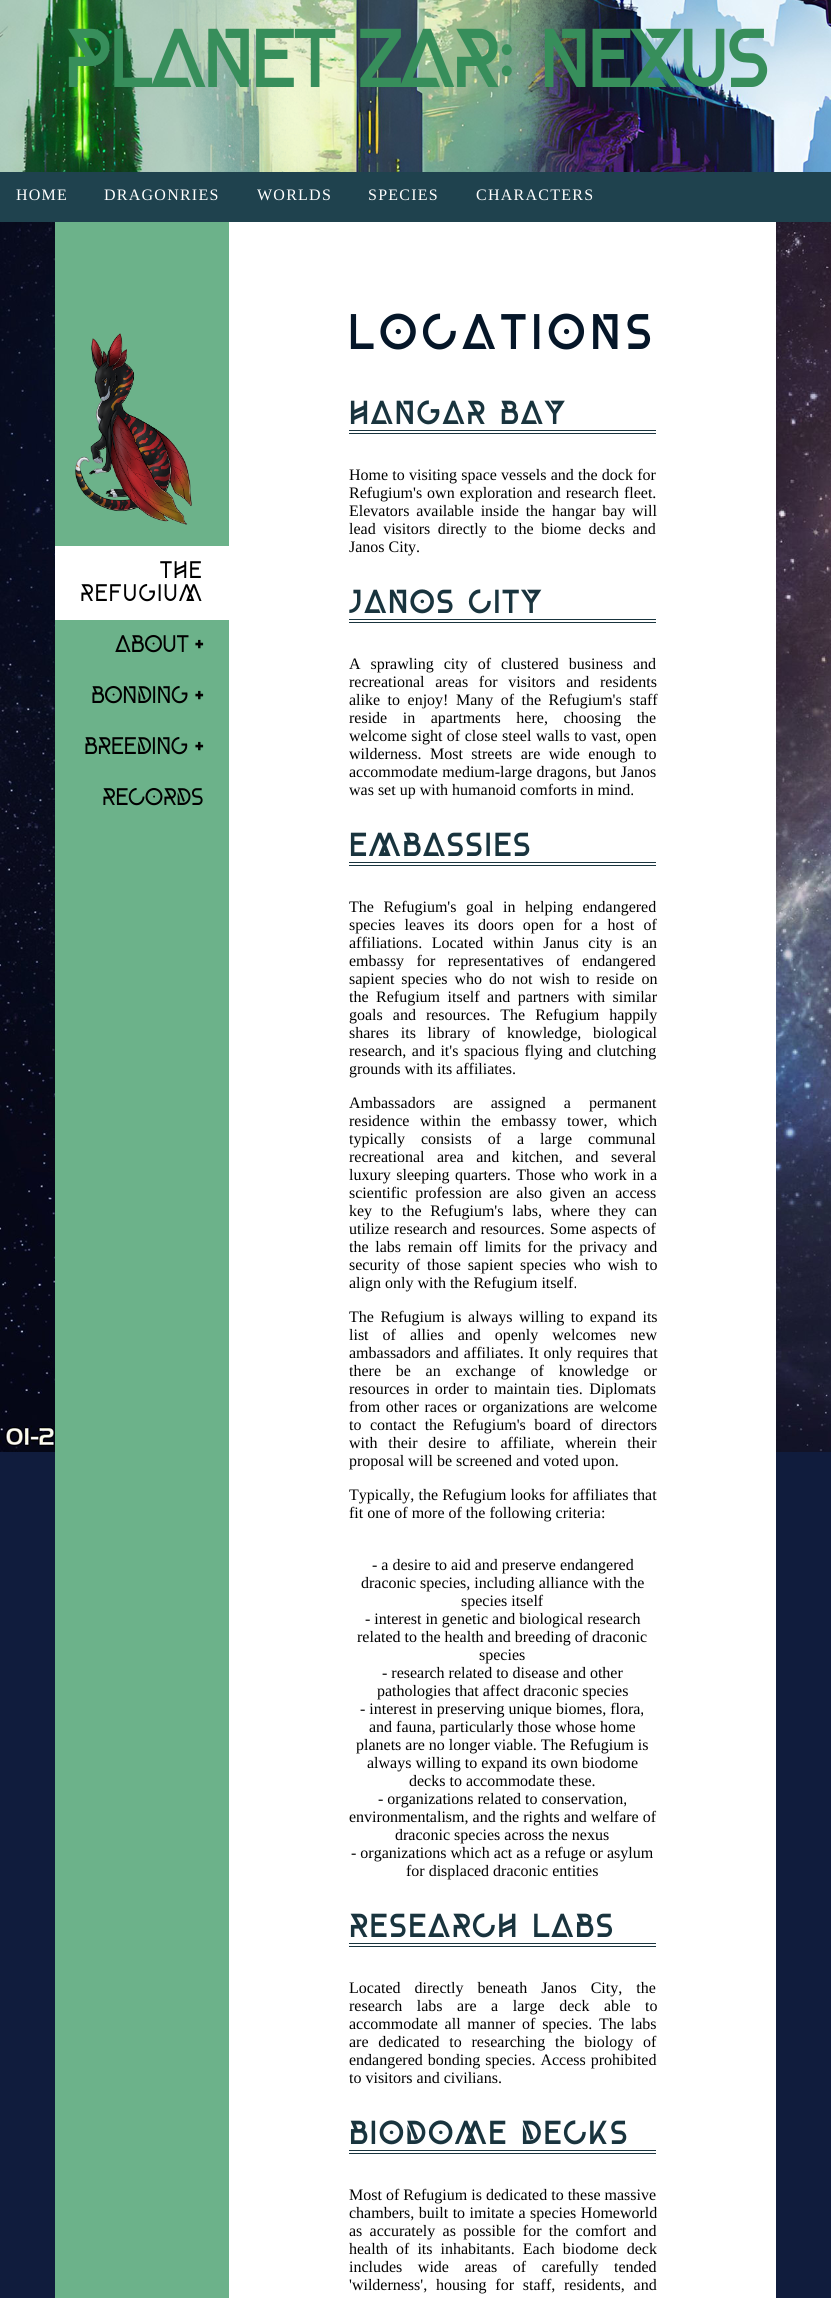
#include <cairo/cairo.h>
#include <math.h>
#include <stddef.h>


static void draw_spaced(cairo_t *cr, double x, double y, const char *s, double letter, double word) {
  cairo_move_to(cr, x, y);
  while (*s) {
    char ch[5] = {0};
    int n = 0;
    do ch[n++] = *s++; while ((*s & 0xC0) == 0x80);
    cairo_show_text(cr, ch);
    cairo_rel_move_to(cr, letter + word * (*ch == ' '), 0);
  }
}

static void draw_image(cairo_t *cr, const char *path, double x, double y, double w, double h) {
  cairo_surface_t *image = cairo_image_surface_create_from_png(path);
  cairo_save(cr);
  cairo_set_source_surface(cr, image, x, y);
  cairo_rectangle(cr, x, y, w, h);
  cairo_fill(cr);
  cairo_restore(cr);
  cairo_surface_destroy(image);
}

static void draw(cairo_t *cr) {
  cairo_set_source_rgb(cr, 16 / 255.0, 28 / 255.0, 61 / 255.0);
  cairo_paint(cr);
  draw_image(cr, "images/1.png", 0, 222, 831, 1230);
  draw_image(cr, "images/2.png", 0, 0, 831, 172);
  cairo_set_source_rgb(cr, 31 / 255.0, 66 / 255.0, 78 / 255.0);
  cairo_rectangle(cr, 0, 172, 831, 50);
  cairo_fill(cr);
  cairo_set_source_rgb(cr, 108 / 255.0, 178 / 255.0, 138 / 255.0);
  cairo_rectangle(cr, 55, 222, 174, 2076);
  cairo_fill(cr);
  draw_image(cr, "images/3.png", 75, 333, 117, 192);
  cairo_set_source_rgb(cr, 1, 1, 1);
  cairo_rectangle(cr, 55, 546, 174, 74);
  cairo_fill(cr);
  cairo_rectangle(cr, 229, 222, 547, 2076);
  cairo_fill(cr);
  cairo_set_source_rgb(cr, 25 / 255.0, 52 / 255.0, 62 / 255.0);
  cairo_rectangle(cr, 349, 430, 307, 1);
  cairo_fill(cr);
  cairo_rectangle(cr, 349, 433, 307, 1);
  cairo_fill(cr);
  cairo_rectangle(cr, 349, 619, 307, 1);
  cairo_fill(cr);
  cairo_rectangle(cr, 349, 622, 307, 1);
  cairo_fill(cr);
  cairo_rectangle(cr, 349, 862, 307, 1);
  cairo_fill(cr);
  cairo_rectangle(cr, 349, 865, 307, 1);
  cairo_fill(cr);
  cairo_rectangle(cr, 349, 1943, 307, 1);
  cairo_fill(cr);
  cairo_rectangle(cr, 349, 1946, 307, 1);
  cairo_fill(cr);
  cairo_rectangle(cr, 349, 2150, 307, 1);
  cairo_fill(cr);
  cairo_rectangle(cr, 349, 2153, 307, 1);
  cairo_fill(cr);
  cairo_select_font_face(cr, "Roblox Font", CAIRO_FONT_SLANT_NORMAL, CAIRO_FONT_WEIGHT_BOLD);
  cairo_set_font_size(cr, 80);
  cairo_set_source_rgb(cr, 55 / 255.0, 142 / 255.0, 91 / 255.0);
  cairo_move_to(cr, 64, 87);
  cairo_show_text(cr, "PLANET ZAR: NEXUS");
  cairo_select_font_face(cr, "Liberation Serif", CAIRO_FONT_SLANT_NORMAL, CAIRO_FONT_WEIGHT_NORMAL);
  cairo_set_font_size(cr, 16);
  cairo_set_source_rgb(cr, 1, 1, 1);
  draw_spaced(cr, 16, 200, "HOME", 1.25, 0);
  draw_spaced(cr, 104, 200, "DRAGONRIES", 1.25, 0);
  draw_spaced(cr, 257, 200, "WORLDS", 1.25, 0);
  draw_spaced(cr, 368, 200, "SPECIES", 1.25, 0);
  draw_spaced(cr, 476, 200, "CHARACTERS", 1.25, 0);
  cairo_select_font_face(cr, "Roblox Font", CAIRO_FONT_SLANT_NORMAL, CAIRO_FONT_WEIGHT_NORMAL);
  cairo_set_font_size(cr, 24);
  cairo_set_source_rgb(cr, 0, 0, 0);
  draw_spaced(cr, 160, 578, "THE", 1.25, 0);
  draw_spaced(cr, 80, 601, "REFUGIUM", 1.25, 0);
  cairo_move_to(cr, 115, 652);
  cairo_show_text(cr, "ABOUT");
  cairo_select_font_face(cr, "Roblox Font", CAIRO_FONT_SLANT_NORMAL, CAIRO_FONT_WEIGHT_BOLD);
  cairo_move_to(cr, 194, 652);
  cairo_show_text(cr, "+");
  cairo_select_font_face(cr, "Roblox Font", CAIRO_FONT_SLANT_NORMAL, CAIRO_FONT_WEIGHT_NORMAL);
  cairo_move_to(cr, 91, 703);
  cairo_show_text(cr, "BONDING");
  cairo_select_font_face(cr, "Roblox Font", CAIRO_FONT_SLANT_NORMAL, CAIRO_FONT_WEIGHT_BOLD);
  cairo_move_to(cr, 194, 703);
  cairo_show_text(cr, "+");
  cairo_select_font_face(cr, "Roblox Font", CAIRO_FONT_SLANT_NORMAL, CAIRO_FONT_WEIGHT_NORMAL);
  cairo_move_to(cr, 84, 754);
  cairo_show_text(cr, "BREEDING");
  cairo_select_font_face(cr, "Roblox Font", CAIRO_FONT_SLANT_NORMAL, CAIRO_FONT_WEIGHT_BOLD);
  cairo_move_to(cr, 194, 754);
  cairo_show_text(cr, "+");
  cairo_select_font_face(cr, "Roblox Font", CAIRO_FONT_SLANT_NORMAL, CAIRO_FONT_WEIGHT_NORMAL);
  cairo_move_to(cr, 102, 805);
  cairo_show_text(cr, "RECORDS");
  cairo_select_font_face(cr, "Roblox Font", CAIRO_FONT_SLANT_NORMAL, CAIRO_FONT_WEIGHT_BOLD);
  cairo_set_font_size(cr, 48);
  cairo_set_source_rgb(cr, 5 / 255.0, 22 / 255.0, 40 / 255.0);
  draw_spaced(cr, 348, 349, "LOCATIONS", 6.75, 0);
  cairo_set_font_size(cr, 32);
  cairo_set_source_rgb(cr, 25 / 255.0, 52 / 255.0, 62 / 255.0);
  draw_spaced(cr, 349, 424, "HANGAR BAY", 2.7, 0);
  cairo_select_font_face(cr, "Liberation Serif", CAIRO_FONT_SLANT_NORMAL, CAIRO_FONT_WEIGHT_NORMAL);
  cairo_set_font_size(cr, 16);
  cairo_set_source_rgb(cr, 0, 0, 0);
  draw_spaced(cr, 349, 480, "Home to visiting space vessels and the dock for", 0, 0.25);
  draw_spaced(cr, 349, 498, "Refugium's own exploration and research fleet.", 0, 1);
  draw_spaced(cr, 349, 516, "Elevators available inside the hangar bay will", 0, 2.75);
  draw_spaced(cr, 349, 534, "lead visitors directly to the biome decks and", 0, 3.5);
  cairo_move_to(cr, 349, 552);
  cairo_show_text(cr, "Janos City.");
  cairo_select_font_face(cr, "Roblox Font", CAIRO_FONT_SLANT_NORMAL, CAIRO_FONT_WEIGHT_BOLD);
  cairo_set_font_size(cr, 32);
  cairo_set_source_rgb(cr, 25 / 255.0, 52 / 255.0, 62 / 255.0);
  draw_spaced(cr, 349, 613, "JANOS CITY", 2.7, 0);
  cairo_select_font_face(cr, "Liberation Serif", CAIRO_FONT_SLANT_NORMAL, CAIRO_FONT_WEIGHT_NORMAL);
  cairo_set_font_size(cr, 16);
  cairo_set_source_rgb(cr, 0, 0, 0);
  draw_spaced(cr, 349, 669, "A sprawling city of clustered business and", 0, 6);
  draw_spaced(cr, 349, 687, "recreational areas for visitors and residents", 0, 6.75);
  draw_spaced(cr, 349, 705, "alike to enjoy! Many of the Refugium's staff", 0, 3.5);
  draw_spaced(cr, 349, 723, "reside in apartments here, choosing the", 0, 11.5);
  draw_spaced(cr, 349, 741, "welcome sight of close steel walls to vast, open", 0, 0.5);
  draw_spaced(cr, 349, 759, "wilderness. Most streets are wide enough to", 0, 4.5);
  draw_spaced(cr, 349, 777, "accommodate medium-large dragons, but Janos", 0, 0.5);
  cairo_move_to(cr, 349, 795);
  cairo_show_text(cr, "was set up with humanoid comforts in mind.");
  cairo_select_font_face(cr, "Roblox Font", CAIRO_FONT_SLANT_NORMAL, CAIRO_FONT_WEIGHT_BOLD);
  cairo_set_font_size(cr, 32);
  cairo_set_source_rgb(cr, 25 / 255.0, 52 / 255.0, 62 / 255.0);
  draw_spaced(cr, 349, 856, "EMBASSIES", 2.7, 0);
  cairo_select_font_face(cr, "Liberation Serif", CAIRO_FONT_SLANT_NORMAL, CAIRO_FONT_WEIGHT_NORMAL);
  cairo_set_font_size(cr, 16);
  cairo_set_source_rgb(cr, 0, 0, 0);
  draw_spaced(cr, 349, 912, "The Refugium's goal in helping endangered", 0, 5.5);
  draw_spaced(cr, 349, 930, "species leaves its doors open for a host of", 0, 5.25);
  draw_spaced(cr, 349, 948, "affiliations. Located within Janus city is an", 0, 5.5);
  draw_spaced(cr, 349, 966, "embassy for representatives of endangered", 0, 8.5);
  draw_spaced(cr, 349, 984, "sapient species who do not wish to reside on", 0, 3);
  draw_spaced(cr, 349, 1002, "the Refugium itself and partners with similar", 0, 3.5);
  draw_spaced(cr, 349, 1020, "goals and resources. The Refugium happily", 0, 6);
  draw_spaced(cr, 349, 1038, "shares its library of knowledge, biological", 0, 7.75);
  draw_spaced(cr, 349, 1056, "research, and it's spacious flying and clutching", 0, 1.5);
  cairo_move_to(cr, 349, 1074);
  cairo_show_text(cr, "grounds with its affiliates.");
  draw_spaced(cr, 349, 1108, "Ambassadors are assigned a permanent", 0, 14);
  draw_spaced(cr, 349, 1126, "residence within the embassy tower, which", 0, 6.5);
  draw_spaced(cr, 349, 1144, "typically consists of a large communal", 0, 12);
  draw_spaced(cr, 349, 1162, "recreational area and kitchen, and several", 0, 8.5);
  draw_spaced(cr, 349, 1180, "luxury sleeping quarters. Those who work in a", 0, 1.5);
  draw_spaced(cr, 349, 1198, "scientific profession are also given an access", 0, 3.5);
  draw_spaced(cr, 349, 1216, "key to the Refugium's labs, where they can", 0, 4.75);
  draw_spaced(cr, 349, 1234, "utilize research and resources. Some aspects of", 0, 1);
  draw_spaced(cr, 349, 1252, "the labs remain off limits for the privacy and", 0, 2.75);
  draw_spaced(cr, 349, 1270, "security of those sapient species who wish to", 0, 3);
  cairo_move_to(cr, 349, 1288);
  cairo_show_text(cr, "align only with the Refugium itself.");
  draw_spaced(cr, 349, 1322, "The Refugium is always willing to expand its", 0, 2.5);
  draw_spaced(cr, 349, 1340, "list of allies and openly welcomes new", 0, 10);
  draw_spaced(cr, 349, 1358, "ambassadors and affiliates. It only requires that", 0, 1);
  draw_spaced(cr, 349, 1376, "there be an exchange of knowledge or", 0, 10.75);
  draw_spaced(cr, 349, 1394, "resources in order to maintain ties. Diplomats", 0, 2.5);
  draw_spaced(cr, 349, 1412, "from other races or organizations are welcome", 0, 1.75);
  draw_spaced(cr, 349, 1430, "to contact the Refugium's board of directors", 0, 4.5);
  draw_spaced(cr, 349, 1448, "with their desire to affiliate, wherein their", 0, 6.75);
  cairo_move_to(cr, 349, 1466);
  cairo_show_text(cr, "proposal will be screened and voted upon.");
  draw_spaced(cr, 349, 1500, "Typically, the Refugium looks for affiliates that", 0, 0.25);
  cairo_move_to(cr, 349, 1518);
  cairo_show_text(cr, "fit one of more of the following criteria:");
  cairo_move_to(cr, 372, 1570);
  cairo_show_text(cr, "- a desire to aid and preserve endangered");
  cairo_move_to(cr, 361, 1588);
  cairo_show_text(cr, "draconic species, including alliance with the");
  cairo_move_to(cr, 461, 1606);
  cairo_show_text(cr, "species itself");
  cairo_move_to(cr, 365, 1624);
  cairo_show_text(cr, "- interest in genetic and biological research");
  cairo_move_to(cr, 357, 1642);
  cairo_show_text(cr, "related to the health and breeding of draconic");
  cairo_move_to(cr, 479, 1660);
  cairo_show_text(cr, "species");
  cairo_move_to(cr, 382, 1678);
  cairo_show_text(cr, "- research related to disease and other");
  cairo_move_to(cr, 377, 1696);
  cairo_show_text(cr, "pathologies that affect draconic species");
  cairo_move_to(cr, 360, 1714);
  cairo_show_text(cr, "- interest in preserving unique biomes, flora,");
  cairo_move_to(cr, 369, 1732);
  cairo_show_text(cr, "and fauna, particularly those whose home");
  cairo_move_to(cr, 356, 1750);
  cairo_show_text(cr, "planets are no longer viable. The Refugium is");
  cairo_move_to(cr, 367, 1768);
  cairo_show_text(cr, "always willing to expand its own biodome");
  cairo_move_to(cr, 409, 1786);
  cairo_show_text(cr, "decks to accommodate these.");
  cairo_move_to(cr, 378, 1804);
  cairo_show_text(cr, "- organizations related to conservation,");
  cairo_move_to(cr, 349, 1822);
  cairo_show_text(cr, "environmentalism, and the rights and welfare of");
  cairo_move_to(cr, 395, 1840);
  cairo_show_text(cr, "draconic species across the nexus");
  cairo_move_to(cr, 351, 1858);
  cairo_show_text(cr, "- organizations which act as a refuge or asylum");
  cairo_move_to(cr, 406, 1876);
  cairo_show_text(cr, "for displaced draconic entities");
  cairo_select_font_face(cr, "Roblox Font", CAIRO_FONT_SLANT_NORMAL, CAIRO_FONT_WEIGHT_BOLD);
  cairo_set_font_size(cr, 32);
  cairo_set_source_rgb(cr, 25 / 255.0, 52 / 255.0, 62 / 255.0);
  draw_spaced(cr, 349, 1937, "RESEARCH LABS", 2.7, 0);
  cairo_select_font_face(cr, "Liberation Serif", CAIRO_FONT_SLANT_NORMAL, CAIRO_FONT_WEIGHT_NORMAL);
  cairo_set_font_size(cr, 16);
  cairo_set_source_rgb(cr, 0, 0, 0);
  draw_spaced(cr, 349, 1993, "Located directly beneath Janos City, the", 0, 10);
  draw_spaced(cr, 349, 2011, "research labs are a large deck able to", 0, 10.5);
  draw_spaced(cr, 349, 2029, "accommodate all manner of species. The labs", 0, 2.75);
  draw_spaced(cr, 349, 2047, "are dedicated to researching the biology of", 0, 5.75);
  draw_spaced(cr, 349, 2065, "endangered bonding species. Access prohibited", 0, 1);
  cairo_move_to(cr, 349, 2083);
  cairo_show_text(cr, "to visitors and civilians.");
  cairo_select_font_face(cr, "Roblox Font", CAIRO_FONT_SLANT_NORMAL, CAIRO_FONT_WEIGHT_BOLD);
  cairo_set_font_size(cr, 32);
  cairo_set_source_rgb(cr, 25 / 255.0, 52 / 255.0, 62 / 255.0);
  draw_spaced(cr, 349, 2144, "BIODOME DECKS", 2.7, 0);
  cairo_select_font_face(cr, "Liberation Serif", CAIRO_FONT_SLANT_NORMAL, CAIRO_FONT_WEIGHT_NORMAL);
  cairo_set_font_size(cr, 16);
  cairo_set_source_rgb(cr, 0, 0, 0);
  cairo_move_to(cr, 349, 2200);
  cairo_show_text(cr, "Most of Refugium is dedicated to these massive");
  draw_spaced(cr, 349, 2218, "chambers, built to imitate a species Homeworld", 0, 0.5);
  draw_spaced(cr, 349, 2236, "as accurately as possible for the comfort and", 0, 3.25);
  draw_spaced(cr, 349, 2254, "health of its inhabitants. Each biodome deck", 0, 4);
  draw_spaced(cr, 349, 2272, "includes wide areas of carefully tended", 0, 11.5);
  draw_spaced(cr, 349, 2290, "'wilderness', housing for staff, residents, and", 0, 4.75);
}

int main(void) {
  cairo_surface_t *surface = cairo_image_surface_create(CAIRO_FORMAT_RGB24, 831, 2298);
  cairo_t *cr = cairo_create(surface);
  cairo_font_options_t *options = cairo_font_options_create();
  cairo_font_options_set_hint_metrics(options, CAIRO_HINT_METRICS_OFF);
  cairo_font_options_set_hint_style(options, CAIRO_HINT_STYLE_NONE);
  cairo_set_font_options(cr, options);
  cairo_set_miter_limit(cr, 4);
  draw(cr);
  cairo_surface_write_to_png(surface, "out.png");
  cairo_font_options_destroy(options);
  cairo_destroy(cr);
  cairo_surface_destroy(surface);
  return 0;
}
